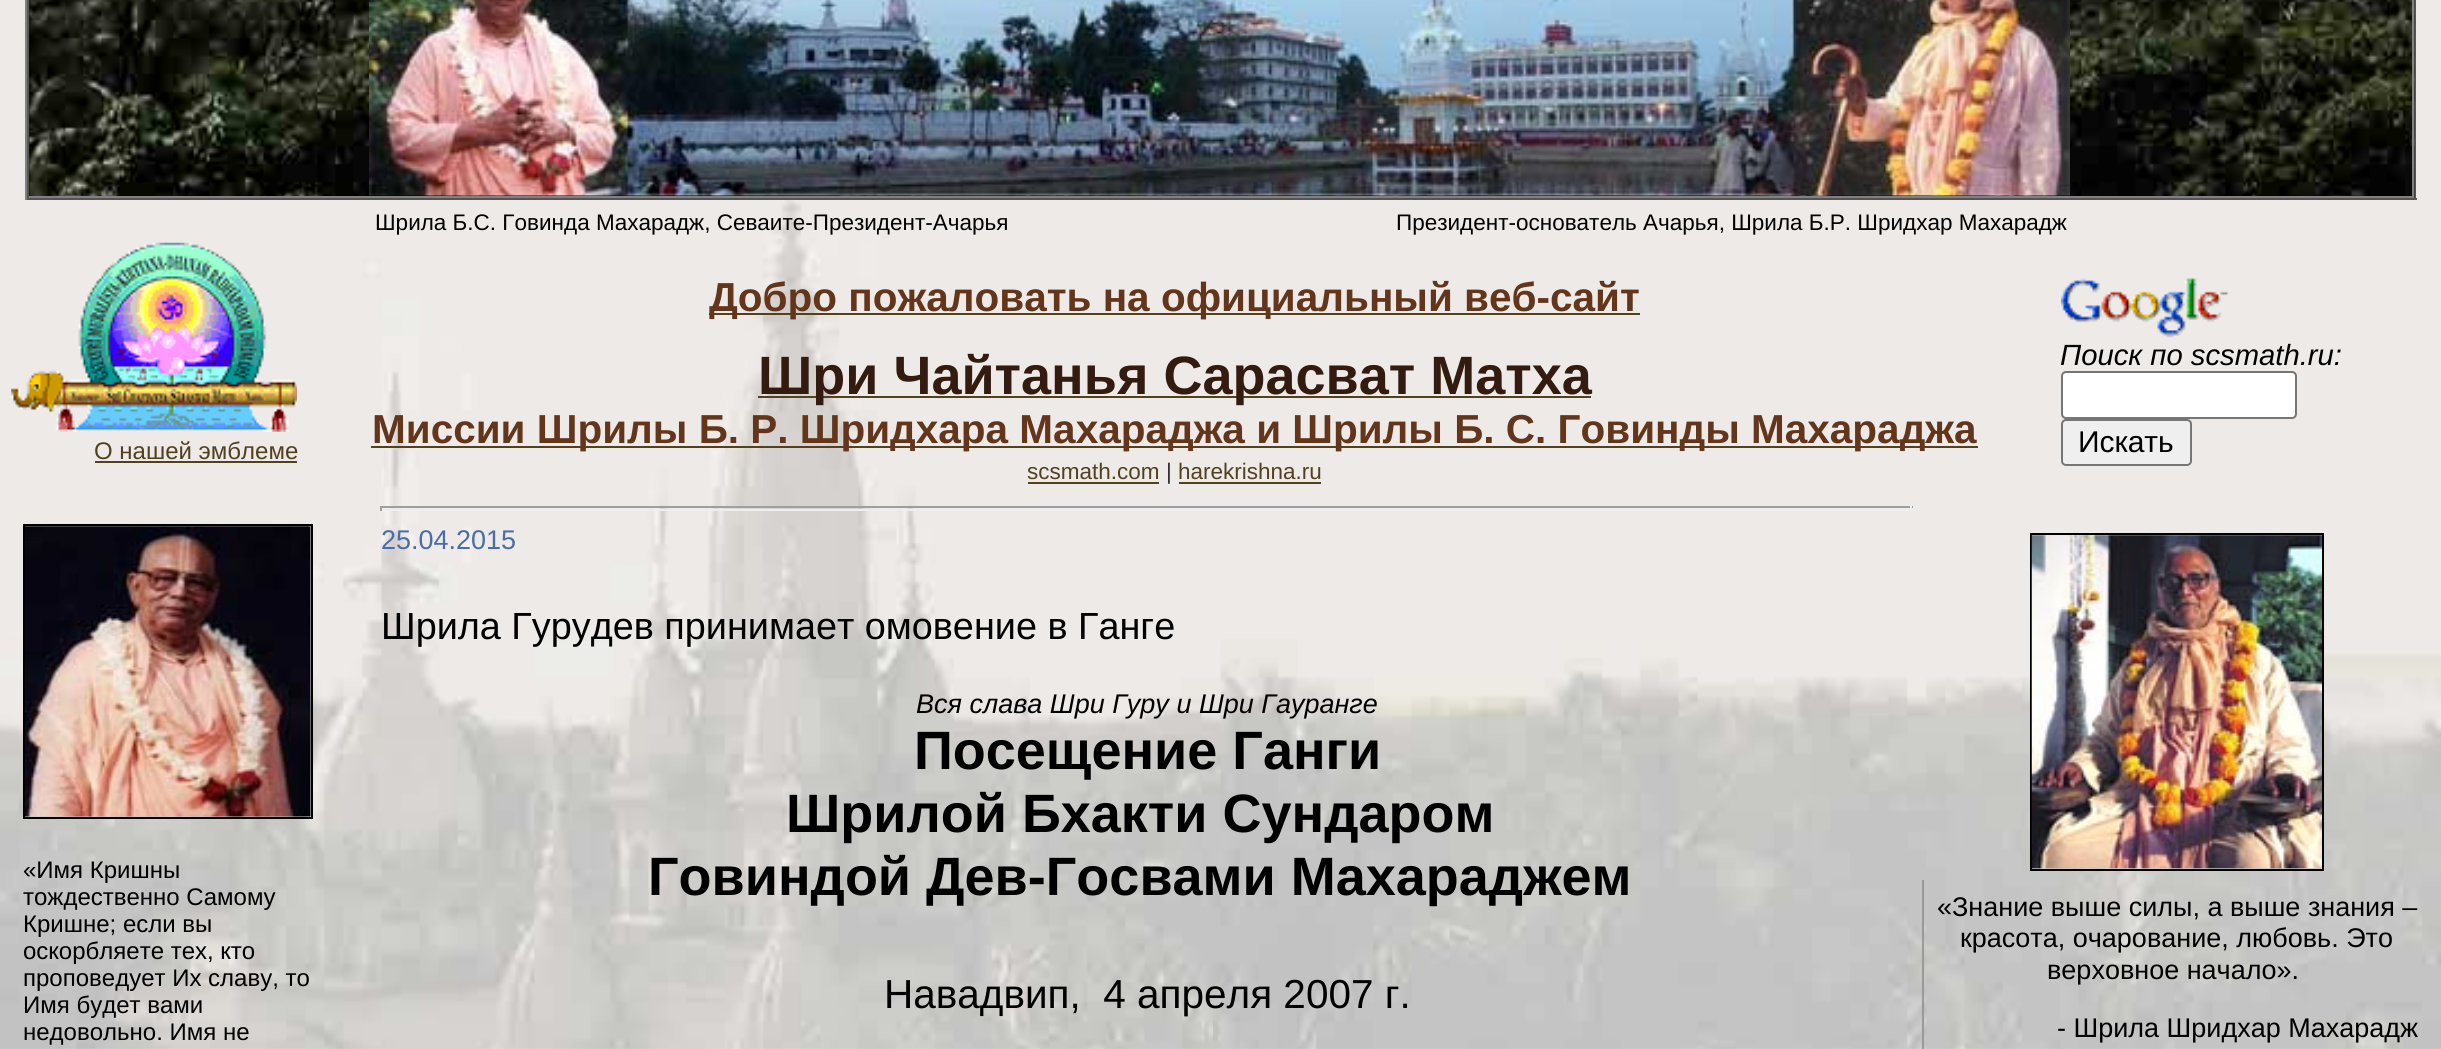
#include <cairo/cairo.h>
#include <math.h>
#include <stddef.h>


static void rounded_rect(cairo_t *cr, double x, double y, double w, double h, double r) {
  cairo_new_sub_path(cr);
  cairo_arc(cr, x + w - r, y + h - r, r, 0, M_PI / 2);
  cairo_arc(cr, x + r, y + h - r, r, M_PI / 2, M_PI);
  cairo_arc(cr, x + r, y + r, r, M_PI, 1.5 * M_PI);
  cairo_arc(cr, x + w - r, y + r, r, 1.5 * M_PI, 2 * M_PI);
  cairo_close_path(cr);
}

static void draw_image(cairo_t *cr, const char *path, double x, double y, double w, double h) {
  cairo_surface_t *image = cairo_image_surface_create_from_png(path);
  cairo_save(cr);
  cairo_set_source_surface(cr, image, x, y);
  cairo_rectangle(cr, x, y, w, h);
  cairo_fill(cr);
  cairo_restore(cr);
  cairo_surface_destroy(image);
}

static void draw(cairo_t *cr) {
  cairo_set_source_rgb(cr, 1, 1, 1);
  cairo_paint(cr);
  draw_image(cr, "images/1.png", 0, 0, 2441, 1049);
  cairo_set_source_rgb(cr, 85 / 255.0, 85 / 255.0, 85 / 255.0);
  cairo_rectangle(cr, 2414, 0, 2, 200);
  cairo_fill(cr);
  cairo_rectangle(cr, 25, 198, 2392, 2);
  cairo_fill(cr);
  cairo_set_source_rgb(cr, 128 / 255.0, 128 / 255.0, 128 / 255.0);
  cairo_rectangle(cr, 25, 0, 2, 200);
  cairo_fill(cr);
  draw_image(cr, "images/2.png", 29, 0, 2386, 198);
  cairo_rectangle(cr, 2412, 0, 2, 198);
  cairo_fill(cr);
  cairo_rectangle(cr, 27, 196, 2387, 2);
  cairo_fill(cr);
  cairo_set_source_rgb(cr, 85 / 255.0, 85 / 255.0, 85 / 255.0);
  cairo_rectangle(cr, 27, 0, 2, 198);
  cairo_fill(cr);
  draw_image(cr, "images/3.png", 369, 0, 1701, 196);
  draw_image(cr, "images/4.png", 11, 242, 286, 190);
  cairo_set_source_rgb(cr, 81 / 255.0, 65 / 255.0, 31 / 255.0);
  cairo_rectangle(cr, 95, 461, 202, 2);
  cairo_fill(cr);
  cairo_rectangle(cr, 709, 313, 931, 2);
  cairo_fill(cr);
  cairo_rectangle(cr, 758, 396, 833, 2);
  cairo_fill(cr);
  cairo_rectangle(cr, 371, 446, 1607, 2);
  cairo_fill(cr);
  cairo_rectangle(cr, 1028, 482, 131, 2);
  cairo_fill(cr);
  cairo_rectangle(cr, 1179, 482, 142, 2);
  cairo_fill(cr);
  draw_image(cr, "images/5.png", 2061, 278, 168, 60);
  cairo_set_source_rgb(cr, 1, 1, 1);
  rounded_rect(cr, 2062, 372, 234, 46, 4);
  cairo_fill_preserve(cr);
  cairo_set_source_rgb(cr, 118 / 255.0, 118 / 255.0, 118 / 255.0);
  cairo_stroke(cr);
  cairo_set_source_rgb(cr, 239 / 255.0, 239 / 255.0, 239 / 255.0);
  rounded_rect(cr, 2062, 420, 129, 45, 4);
  cairo_fill_preserve(cr);
  cairo_set_source_rgb(cr, 118 / 255.0, 118 / 255.0, 118 / 255.0);
  cairo_stroke(cr);
  cairo_rectangle(cr, 24, 525, 288, 293);
  cairo_set_source_rgb(cr, 0, 0, 0);
  cairo_stroke(cr);
  draw_image(cr, "images/6.png", 24, 526, 287, 291);
  cairo_set_source_rgb(cr, 159 / 255.0, 159 / 255.0, 159 / 255.0);
  cairo_rectangle(cr, 380, 506, 1533, 2);
  cairo_fill(cr);
  cairo_set_source_rgb(cr, 238 / 255.0, 238 / 255.0, 238 / 255.0);
  cairo_rectangle(cr, 1910, 506, 2, 5);
  cairo_fill(cr);
  cairo_rectangle(cr, 380, 509, 1533, 2);
  cairo_fill(cr);
  cairo_set_source_rgb(cr, 159 / 255.0, 159 / 255.0, 159 / 255.0);
  cairo_rectangle(cr, 380, 506, 2, 5);
  cairo_fill(cr);
  cairo_rectangle(cr, 2031, 534, 292, 336);
  cairo_set_source_rgb(cr, 0, 0, 0);
  cairo_stroke(cr);
  draw_image(cr, "images/7.png", 2031, 535, 291, 334);
  cairo_set_source_rgb(cr, 153 / 255.0, 153 / 255.0, 153 / 255.0);
  cairo_rectangle(cr, 1922, 880, 2, 169);
  cairo_fill(cr);
  cairo_select_font_face(cr, "Liberation Sans", CAIRO_FONT_SLANT_NORMAL, CAIRO_FONT_WEIGHT_NORMAL);
  cairo_set_font_size(cr, 22.5);
  cairo_set_source_rgb(cr, 0, 0, 0);
  cairo_move_to(cr, 375, 230);
  cairo_show_text(cr, "Шрила Б.С. Говинда Махарадж, Севаите-Президент-Ачарья");
  cairo_move_to(cr, 1396, 230);
  cairo_show_text(cr, "Президент-основатель Ачарья, Шрила Б.Р. Шридхар Махарадж");
  cairo_set_font_size(cr, 24);
  cairo_set_source_rgb(cr, 81 / 255.0, 65 / 255.0, 31 / 255.0);
  cairo_move_to(cr, 94, 459);
  cairo_show_text(cr, "О нашей эмблеме");
  cairo_select_font_face(cr, "Liberation Sans", CAIRO_FONT_SLANT_NORMAL, CAIRO_FONT_WEIGHT_BOLD);
  cairo_set_font_size(cr, 40.5);
  cairo_set_source_rgb(cr, 99 / 255.0, 54 / 255.0, 27 / 255.0);
  cairo_move_to(cr, 709, 311);
  cairo_show_text(cr, "Добро пожаловать на официальный веб-сайт");
  cairo_set_font_size(cr, 54);
  cairo_set_source_rgb(cr, 51 / 255.0, 27 / 255.0, 16 / 255.0);
  cairo_move_to(cr, 758, 394);
  cairo_show_text(cr, "Шри Чайтанья Сарасват Матха");
  cairo_set_font_size(cr, 40.5);
  cairo_set_source_rgb(cr, 99 / 255.0, 54 / 255.0, 27 / 255.0);
  cairo_move_to(cr, 372, 443);
  cairo_show_text(cr, "Миссии Шрилы Б. Р. Шридхара Махараджа и Шрилы Б. С. Говинды Махараджа");
  cairo_select_font_face(cr, "Liberation Sans", CAIRO_FONT_SLANT_NORMAL, CAIRO_FONT_WEIGHT_NORMAL);
  cairo_set_font_size(cr, 22.5);
  cairo_set_source_rgb(cr, 81 / 255.0, 65 / 255.0, 31 / 255.0);
  cairo_move_to(cr, 1027, 479);
  cairo_show_text(cr, "scsmath.com");
  cairo_set_source_rgb(cr, 51 / 255.0, 51 / 255.0, 51 / 255.0);
  cairo_move_to(cr, 1166, 479);
  cairo_show_text(cr, "|");
  cairo_set_source_rgb(cr, 81 / 255.0, 65 / 255.0, 31 / 255.0);
  cairo_move_to(cr, 1178, 479);
  cairo_show_text(cr, "harekrishna.ru");
  cairo_select_font_face(cr, "Liberation Sans", CAIRO_FONT_SLANT_ITALIC, CAIRO_FONT_WEIGHT_NORMAL);
  cairo_set_font_size(cr, 29.25);
  cairo_set_source_rgb(cr, 0, 0, 0);
  cairo_move_to(cr, 2060, 365);
  cairo_show_text(cr, "Поиск по scsmath.ru:");
  cairo_select_font_face(cr, "Liberation Sans", CAIRO_FONT_SLANT_NORMAL, CAIRO_FONT_WEIGHT_NORMAL);
  cairo_set_font_size(cr, 30);
  cairo_move_to(cr, 2078, 452);
  cairo_show_text(cr, "Искать");
  cairo_set_font_size(cr, 24);
  cairo_move_to(cr, 23, 878);
  cairo_show_text(cr, "«Имя Кришны");
  cairo_move_to(cr, 23, 905);
  cairo_show_text(cr, "тождественно Самому");
  cairo_move_to(cr, 23, 932);
  cairo_show_text(cr, "Кришне; если вы");
  cairo_move_to(cr, 23, 959);
  cairo_show_text(cr, "оскорбляете тех, кто");
  cairo_move_to(cr, 23, 986);
  cairo_show_text(cr, "проповедует Их славу, то");
  cairo_move_to(cr, 23, 1013);
  cairo_show_text(cr, "Имя будет вами");
  cairo_move_to(cr, 23, 1040);
  cairo_show_text(cr, "недовольно. Имя не");
  cairo_set_font_size(cr, 27);
  cairo_set_source_rgb(cr, 72 / 255.0, 109 / 255.0, 170 / 255.0);
  cairo_move_to(cr, 381, 549);
  cairo_show_text(cr, "25.04.2015");
  cairo_set_font_size(cr, 37.8);
  cairo_set_source_rgb(cr, 0, 0, 0);
  cairo_move_to(cr, 381, 639);
  cairo_show_text(cr, "Шрила Гурудев принимает омовение в Ганге");
  cairo_select_font_face(cr, "Liberation Sans", CAIRO_FONT_SLANT_ITALIC, CAIRO_FONT_WEIGHT_NORMAL);
  cairo_set_font_size(cr, 27);
  cairo_move_to(cr, 916, 713);
  cairo_show_text(cr, "Вся слава Шри Гуру и Шри Гауранге");
  cairo_select_font_face(cr, "Liberation Sans", CAIRO_FONT_SLANT_NORMAL, CAIRO_FONT_WEIGHT_BOLD);
  cairo_set_font_size(cr, 54);
  cairo_move_to(cr, 914, 769);
  cairo_show_text(cr, "Посещение Ганги");
  cairo_move_to(cr, 786, 832);
  cairo_show_text(cr, "Шрилой Бхакти Сундаром");
  cairo_move_to(cr, 648, 895);
  cairo_show_text(cr, "Говиндой Дев-Госвами Махараджем");
  cairo_select_font_face(cr, "Liberation Sans", CAIRO_FONT_SLANT_NORMAL, CAIRO_FONT_WEIGHT_NORMAL);
  cairo_set_font_size(cr, 40.5);
  cairo_move_to(cr, 884, 1008);
  cairo_show_text(cr, "Навадвип,  4 апреля 2007 г.");
  cairo_set_font_size(cr, 27);
  cairo_move_to(cr, 1937, 916);
  cairo_show_text(cr, "«Знание выше силы, а выше знания –");
  cairo_move_to(cr, 1960, 947);
  cairo_show_text(cr, "красота, очарование, любовь. Это");
  cairo_move_to(cr, 2047, 979);
  cairo_show_text(cr, "верховное начало».");
  cairo_move_to(cr, 2057, 1037);
  cairo_show_text(cr, "- Шрила Шридхар Махарадж");
}

int main(void) {
  cairo_surface_t *surface = cairo_image_surface_create(CAIRO_FORMAT_RGB24, 2441, 1049);
  cairo_t *cr = cairo_create(surface);
  cairo_font_options_t *options = cairo_font_options_create();
  cairo_font_options_set_hint_metrics(options, CAIRO_HINT_METRICS_OFF);
  cairo_font_options_set_hint_style(options, CAIRO_HINT_STYLE_NONE);
  cairo_set_font_options(cr, options);
  cairo_set_miter_limit(cr, 4);
  draw(cr);
  cairo_surface_write_to_png(surface, "out.png");
  cairo_font_options_destroy(options);
  cairo_destroy(cr);
  cairo_surface_destroy(surface);
  return 0;
}
